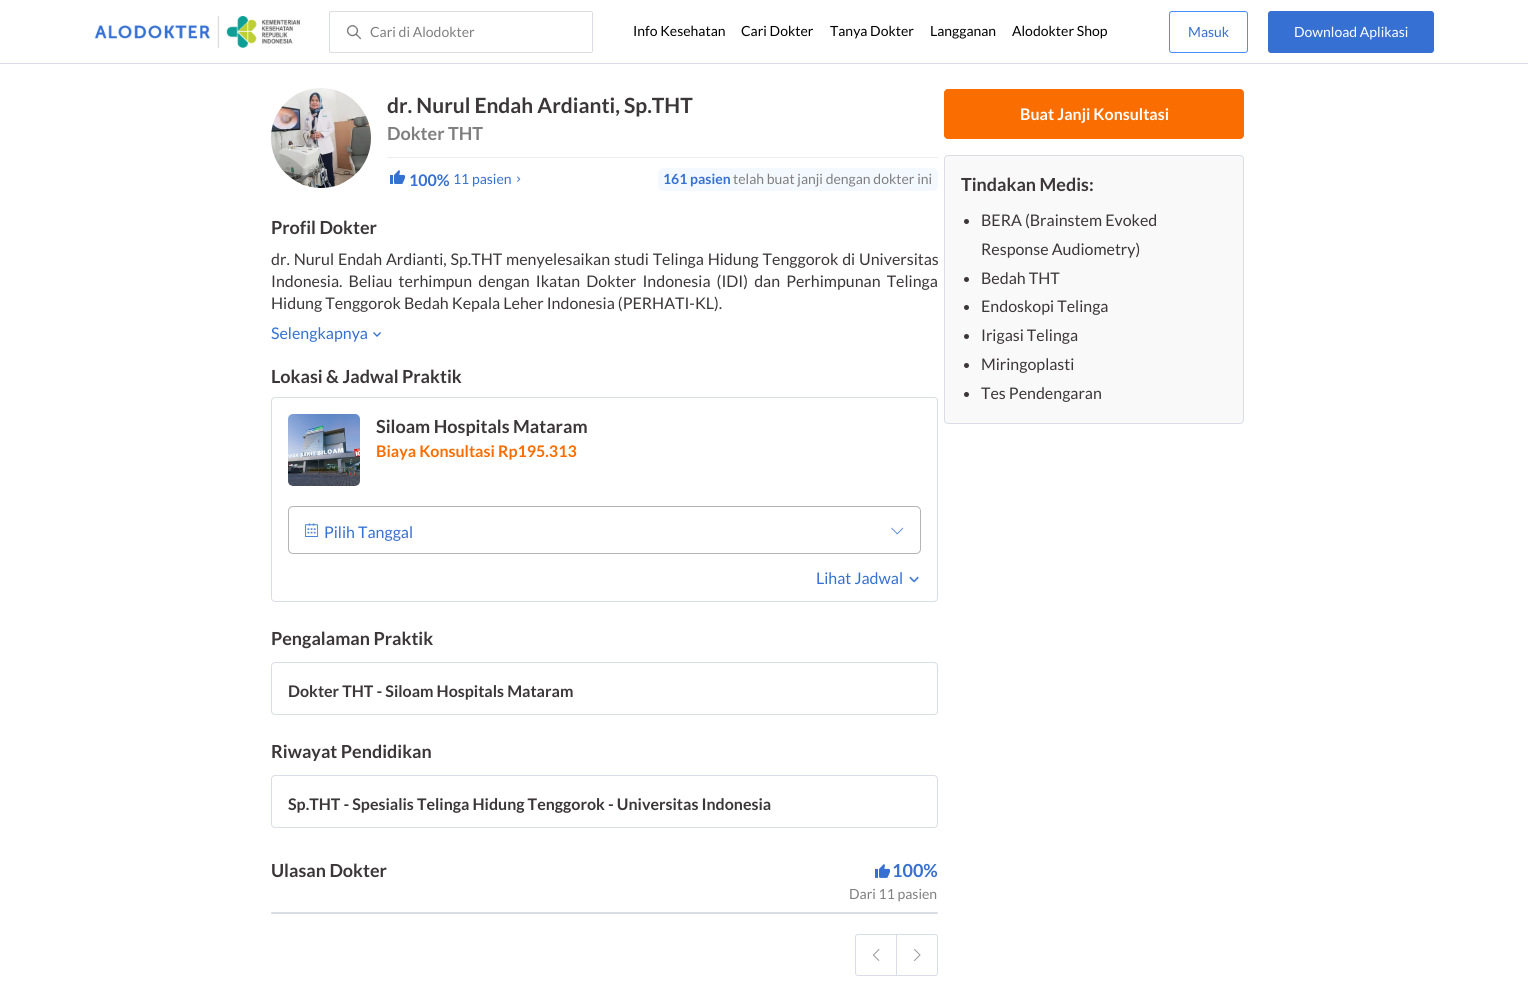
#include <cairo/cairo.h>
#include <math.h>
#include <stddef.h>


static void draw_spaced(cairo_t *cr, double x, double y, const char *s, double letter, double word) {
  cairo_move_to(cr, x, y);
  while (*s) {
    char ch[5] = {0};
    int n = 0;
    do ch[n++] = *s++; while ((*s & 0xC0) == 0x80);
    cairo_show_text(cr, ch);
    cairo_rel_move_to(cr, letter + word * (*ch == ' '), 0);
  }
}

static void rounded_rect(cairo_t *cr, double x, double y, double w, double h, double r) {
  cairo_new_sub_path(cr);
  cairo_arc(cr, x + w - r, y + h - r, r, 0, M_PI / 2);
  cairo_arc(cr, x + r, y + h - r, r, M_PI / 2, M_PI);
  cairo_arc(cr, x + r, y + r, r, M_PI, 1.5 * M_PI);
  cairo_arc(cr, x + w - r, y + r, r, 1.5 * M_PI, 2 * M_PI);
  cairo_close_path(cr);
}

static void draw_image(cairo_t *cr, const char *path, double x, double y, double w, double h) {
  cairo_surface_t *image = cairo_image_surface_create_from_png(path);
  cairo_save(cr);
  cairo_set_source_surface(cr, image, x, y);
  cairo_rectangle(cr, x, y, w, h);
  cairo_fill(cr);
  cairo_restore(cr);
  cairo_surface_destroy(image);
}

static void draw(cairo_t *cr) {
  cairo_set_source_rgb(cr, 1, 1, 1);
  cairo_paint(cr);
  cairo_set_source_rgb(cr, 218 / 255.0, 222 / 255.0, 228 / 255.0);
  cairo_rectangle(cr, 0, 63, 1528, 1);
  cairo_fill(cr);
  draw_image(cr, "images/1.png", 94, 16, 206, 32);
  draw_image(cr, "images/2.png", 346, 24, 16, 16);
  rounded_rect(cr, 329.5, 11.5, 263, 41, 1.5);
  cairo_set_line_width(cr, 1);
  cairo_stroke(cr);
  rounded_rect(cr, 1169.5, 11.5, 78, 41, 2.5);
  cairo_set_source_rgb(cr, 73 / 255.0, 143 / 255.0, 1);
  cairo_stroke(cr);
  cairo_set_source_rgb(cr, 53 / 255.0, 112 / 255.0, 210 / 255.0);
  rounded_rect(cr, 1268.5, 11.5, 165, 41, 2.5);
  cairo_fill_preserve(cr);
  cairo_stroke(cr);
  draw_image(cr, "images/3.png", 271, 88, 100, 100);
  cairo_set_source_rgb(cr, 238 / 255.0, 238 / 255.0, 238 / 255.0);
  cairo_rectangle(cr, 387, 157, 551, 1);
  cairo_fill(cr);
  draw_image(cr, "images/4.png", 390, 170, 15, 14);
  draw_image(cr, "images/5.png", 517, 176, 4, 6);
  cairo_set_source_rgb(cr, 244 / 255.0, 248 / 255.0, 1);
  rounded_rect(cr, 658, 168, 280, 23, 5);
  cairo_fill(cr);
  draw_image(cr, "images/6.png", 373, 332, 8, 5);
  rounded_rect(cr, 271.5, 397.5, 666, 204, 3.5);
  cairo_set_source_rgb(cr, 217 / 255.0, 222 / 255.0, 228 / 255.0);
  cairo_stroke(cr);
  draw_image(cr, "images/7.png", 288, 414, 72, 72);
  rounded_rect(cr, 288.5, 506.5, 632, 47, 4.5);
  cairo_set_source_rgb(cr, 181 / 255.0, 181 / 255.0, 181 / 255.0);
  cairo_stroke(cr);
  draw_image(cr, "images/8.png", 305, 523, 14, 14);
  draw_image(cr, "images/9.png", 891, 527, 13, 8);
  draw_image(cr, "images/10.png", 909, 576, 10, 7);
  rounded_rect(cr, 271.5, 662.5, 666, 52, 3.5);
  cairo_set_source_rgb(cr, 217 / 255.0, 222 / 255.0, 228 / 255.0);
  cairo_stroke(cr);
  rounded_rect(cr, 271.5, 775.5, 666, 52, 3.5);
  cairo_stroke(cr);
  draw_image(cr, "images/11.png", 875, 864, 15, 14);
  rounded_rect(cr, 271, 912, 667, 2, 1);
  cairo_fill(cr);
  cairo_new_path(cr);
  cairo_move_to(cr, 858, 934.5);
  cairo_line_to(cr, 896.5, 934.5);
  cairo_line_to(cr, 896.5, 975.5);
  cairo_line_to(cr, 858, 975.5);
  cairo_curve_to(cr, 856.5, 975.5, 855.5, 974.5, 855.5, 973);
  cairo_line_to(cr, 855.5, 937);
  cairo_curve_to(cr, 855.5, 935.5, 856.5, 934.5, 858, 934.5);
  cairo_close_path(cr);
  cairo_set_source_rgb(cr, 218 / 255.0, 222 / 255.0, 228 / 255.0);
  cairo_stroke(cr);
  draw_image(cr, "images/12.png", 872, 949, 8, 12);
  cairo_new_path(cr);
  cairo_move_to(cr, 896.5, 934.5);
  cairo_line_to(cr, 935, 934.5);
  cairo_curve_to(cr, 936.5, 934.5, 937.5, 935.5, 937.5, 937);
  cairo_line_to(cr, 937.5, 973);
  cairo_curve_to(cr, 937.5, 974.5, 936.5, 975.5, 935, 975.5);
  cairo_line_to(cr, 896.5, 975.5);
  cairo_close_path(cr);
  cairo_stroke(cr);
  draw_image(cr, "images/13.png", 913, 949, 8, 12);
  cairo_set_source_rgb(cr, 249 / 255.0, 109 / 255.0, 1 / 255.0);
  rounded_rect(cr, 944, 89, 300, 50, 4);
  cairo_fill(cr);
  cairo_set_source_rgb(cr, 249 / 255.0, 249 / 255.0, 249 / 255.0);
  rounded_rect(cr, 944.5, 155.5, 299, 268, 3.5);
  cairo_fill_preserve(cr);
  cairo_set_source_rgb(cr, 218 / 255.0, 222 / 255.0, 228 / 255.0);
  cairo_stroke(cr);
  cairo_set_source_rgb(cr, 59 / 255.0, 55 / 255.0, 56 / 255.0);
  cairo_arc(cr, 966.5, 221.5, 2.5, 0, 2 * M_PI);
  cairo_fill(cr);
  cairo_arc(cr, 966.5, 279.5, 2.5, 0, 2 * M_PI);
  cairo_fill(cr);
  cairo_arc(cr, 966.5, 307.5, 2.5, 0, 2 * M_PI);
  cairo_fill(cr);
  cairo_arc(cr, 966.5, 336.5, 2.5, 0, 2 * M_PI);
  cairo_fill(cr);
  cairo_arc(cr, 966.5, 365.5, 2.5, 0, 2 * M_PI);
  cairo_fill(cr);
  cairo_arc(cr, 966.5, 394.5, 2.5, 0, 2 * M_PI);
  cairo_fill(cr);
  cairo_select_font_face(cr, "Lato", CAIRO_FONT_SLANT_NORMAL, CAIRO_FONT_WEIGHT_NORMAL);
  cairo_set_font_size(cr, 14);
  cairo_set_source_rgb(cr, 127 / 255.0, 127 / 255.0, 127 / 255.0);
  cairo_move_to(cr, 370, 37);
  cairo_show_text(cr, "Cari di Alodokter");
  cairo_set_source_rgb(cr, 0, 0, 0);
  cairo_move_to(cr, 633, 36);
  cairo_show_text(cr, "Info Kesehatan");
  cairo_move_to(cr, 741, 36);
  cairo_show_text(cr, "Cari Dokter");
  cairo_move_to(cr, 830, 36);
  cairo_show_text(cr, "Tanya Dokter");
  cairo_move_to(cr, 930, 36);
  cairo_show_text(cr, "Langganan");
  cairo_move_to(cr, 1012, 36);
  cairo_show_text(cr, "Alodokter Shop");
  cairo_set_source_rgb(cr, 53 / 255.0, 112 / 255.0, 210 / 255.0);
  cairo_move_to(cr, 1188, 37);
  cairo_show_text(cr, "Masuk");
  cairo_set_source_rgb(cr, 1, 1, 1);
  cairo_move_to(cr, 1294, 37);
  cairo_show_text(cr, "Download Aplikasi");
  cairo_select_font_face(cr, "Lato", CAIRO_FONT_SLANT_NORMAL, CAIRO_FONT_WEIGHT_BOLD);
  cairo_set_font_size(cr, 21);
  cairo_set_source_rgb(cr, 59 / 255.0, 55 / 255.0, 56 / 255.0);
  cairo_move_to(cr, 387, 113);
  cairo_show_text(cr, "dr. Nurul Endah Ardianti, Sp.THT");
  cairo_set_font_size(cr, 18);
  cairo_set_source_rgb(cr, 127 / 255.0, 127 / 255.0, 127 / 255.0);
  cairo_move_to(cr, 387, 140);
  cairo_show_text(cr, "Dokter THT");
  cairo_set_font_size(cr, 16);
  cairo_set_source_rgb(cr, 53 / 255.0, 112 / 255.0, 210 / 255.0);
  cairo_move_to(cr, 409, 186);
  cairo_show_text(cr, "100%");
  cairo_select_font_face(cr, "Lato", CAIRO_FONT_SLANT_NORMAL, CAIRO_FONT_WEIGHT_NORMAL);
  cairo_set_font_size(cr, 14);
  cairo_move_to(cr, 453, 184);
  cairo_show_text(cr, "11 pasien");
  cairo_select_font_face(cr, "Lato", CAIRO_FONT_SLANT_NORMAL, CAIRO_FONT_WEIGHT_BOLD);
  cairo_move_to(cr, 663, 184);
  cairo_show_text(cr, "161 pasien");
  cairo_select_font_face(cr, "Lato", CAIRO_FONT_SLANT_NORMAL, CAIRO_FONT_WEIGHT_NORMAL);
  cairo_set_source_rgb(cr, 127 / 255.0, 127 / 255.0, 127 / 255.0);
  cairo_move_to(cr, 733, 184);
  cairo_show_text(cr, "telah buat janji dengan dokter ini");
  cairo_select_font_face(cr, "Lato", CAIRO_FONT_SLANT_NORMAL, CAIRO_FONT_WEIGHT_BOLD);
  cairo_set_font_size(cr, 18);
  cairo_set_source_rgb(cr, 59 / 255.0, 55 / 255.0, 56 / 255.0);
  cairo_move_to(cr, 271, 234);
  cairo_show_text(cr, "Profil Dokter");
  cairo_select_font_face(cr, "Lato", CAIRO_FONT_SLANT_NORMAL, CAIRO_FONT_WEIGHT_NORMAL);
  cairo_set_font_size(cr, 16);
  draw_spaced(cr, 271, 265, "dr. Nurul Endah Ardianti, Sp.THT menyelesaikan studi Telinga Hidung Tenggorok di Universitas", 0, 0.75);
  draw_spaced(cr, 271, 287, "Indonesia. Beliau terhimpun dengan Ikatan Dokter Indonesia (IDI) dan Perhimpunan Telinga", 0, 3);
  cairo_move_to(cr, 271, 309);
  cairo_show_text(cr, "Hidung Tenggorok Bedah Kepala Leher Indonesia (PERHATI-KL).");
  cairo_set_source_rgb(cr, 53 / 255.0, 112 / 255.0, 210 / 255.0);
  cairo_move_to(cr, 271, 339);
  cairo_show_text(cr, "Selengkapnya");
  cairo_select_font_face(cr, "Lato", CAIRO_FONT_SLANT_NORMAL, CAIRO_FONT_WEIGHT_BOLD);
  cairo_set_font_size(cr, 18);
  cairo_set_source_rgb(cr, 59 / 255.0, 55 / 255.0, 56 / 255.0);
  cairo_move_to(cr, 271, 383);
  cairo_show_text(cr, "Lokasi & Jadwal Praktik");
  cairo_move_to(cr, 376, 433);
  cairo_show_text(cr, "Siloam Hospitals Mataram");
  cairo_set_font_size(cr, 16);
  cairo_set_source_rgb(cr, 249 / 255.0, 109 / 255.0, 1 / 255.0);
  cairo_move_to(cr, 376, 457);
  cairo_show_text(cr, "Biaya Konsultasi Rp195.313");
  cairo_select_font_face(cr, "Lato", CAIRO_FONT_SLANT_NORMAL, CAIRO_FONT_WEIGHT_NORMAL);
  cairo_set_source_rgb(cr, 53 / 255.0, 112 / 255.0, 210 / 255.0);
  cairo_move_to(cr, 324, 538);
  cairo_show_text(cr, "Pilih Tanggal");
  cairo_move_to(cr, 816, 584);
  cairo_show_text(cr, "Lihat Jadwal");
  cairo_select_font_face(cr, "Lato", CAIRO_FONT_SLANT_NORMAL, CAIRO_FONT_WEIGHT_BOLD);
  cairo_set_font_size(cr, 18);
  cairo_set_source_rgb(cr, 59 / 255.0, 55 / 255.0, 56 / 255.0);
  cairo_move_to(cr, 271, 645);
  cairo_show_text(cr, "Pengalaman Praktik");
  cairo_set_font_size(cr, 16);
  cairo_move_to(cr, 288, 697);
  cairo_show_text(cr, "Dokter THT - Siloam Hospitals Mataram");
  cairo_set_font_size(cr, 18);
  cairo_move_to(cr, 271, 758);
  cairo_show_text(cr, "Riwayat Pendidikan");
  cairo_set_font_size(cr, 16);
  cairo_move_to(cr, 288, 810);
  cairo_show_text(cr, "Sp.THT - Spesialis Telinga Hidung Tenggorok - Universitas Indonesia");
  cairo_set_font_size(cr, 18);
  cairo_move_to(cr, 271, 877);
  cairo_show_text(cr, "Ulasan Dokter");
  cairo_set_source_rgb(cr, 53 / 255.0, 112 / 255.0, 210 / 255.0);
  cairo_move_to(cr, 892, 877);
  cairo_show_text(cr, "100%");
  cairo_select_font_face(cr, "Lato", CAIRO_FONT_SLANT_NORMAL, CAIRO_FONT_WEIGHT_NORMAL);
  cairo_set_font_size(cr, 14);
  cairo_set_source_rgb(cr, 127 / 255.0, 127 / 255.0, 127 / 255.0);
  cairo_move_to(cr, 849, 899);
  cairo_show_text(cr, "Dari 11 pasien");
  cairo_select_font_face(cr, "Lato", CAIRO_FONT_SLANT_NORMAL, CAIRO_FONT_WEIGHT_BOLD);
  cairo_set_font_size(cr, 16);
  cairo_set_source_rgb(cr, 1, 1, 1);
  cairo_move_to(cr, 1020, 120);
  cairo_show_text(cr, "Buat Janji Konsultasi");
  cairo_set_font_size(cr, 18);
  cairo_set_source_rgb(cr, 59 / 255.0, 55 / 255.0, 56 / 255.0);
  cairo_move_to(cr, 961, 191);
  cairo_show_text(cr, "Tindakan Medis:");
  cairo_select_font_face(cr, "Lato", CAIRO_FONT_SLANT_NORMAL, CAIRO_FONT_WEIGHT_NORMAL);
  cairo_set_font_size(cr, 16);
  cairo_move_to(cr, 981, 226);
  cairo_show_text(cr, "BERA (Brainstem Evoked");
  cairo_move_to(cr, 981, 255);
  cairo_show_text(cr, "Response Audiometry)");
  cairo_move_to(cr, 981, 284);
  cairo_show_text(cr, "Bedah THT");
  cairo_move_to(cr, 981, 312);
  cairo_show_text(cr, "Endoskopi Telinga");
  cairo_move_to(cr, 981, 341);
  cairo_show_text(cr, "Irigasi Telinga");
  cairo_move_to(cr, 981, 370);
  cairo_show_text(cr, "Miringoplasti");
  cairo_move_to(cr, 981, 399);
  cairo_show_text(cr, "Tes Pendengaran");
}

int main(void) {
  cairo_surface_t *surface = cairo_image_surface_create(CAIRO_FORMAT_RGB24, 1528, 996);
  cairo_t *cr = cairo_create(surface);
  cairo_font_options_t *options = cairo_font_options_create();
  cairo_font_options_set_hint_metrics(options, CAIRO_HINT_METRICS_OFF);
  cairo_font_options_set_hint_style(options, CAIRO_HINT_STYLE_NONE);
  cairo_set_font_options(cr, options);
  cairo_set_miter_limit(cr, 4);
  draw(cr);
  cairo_surface_write_to_png(surface, "out.png");
  cairo_font_options_destroy(options);
  cairo_destroy(cr);
  cairo_surface_destroy(surface);
  return 0;
}
